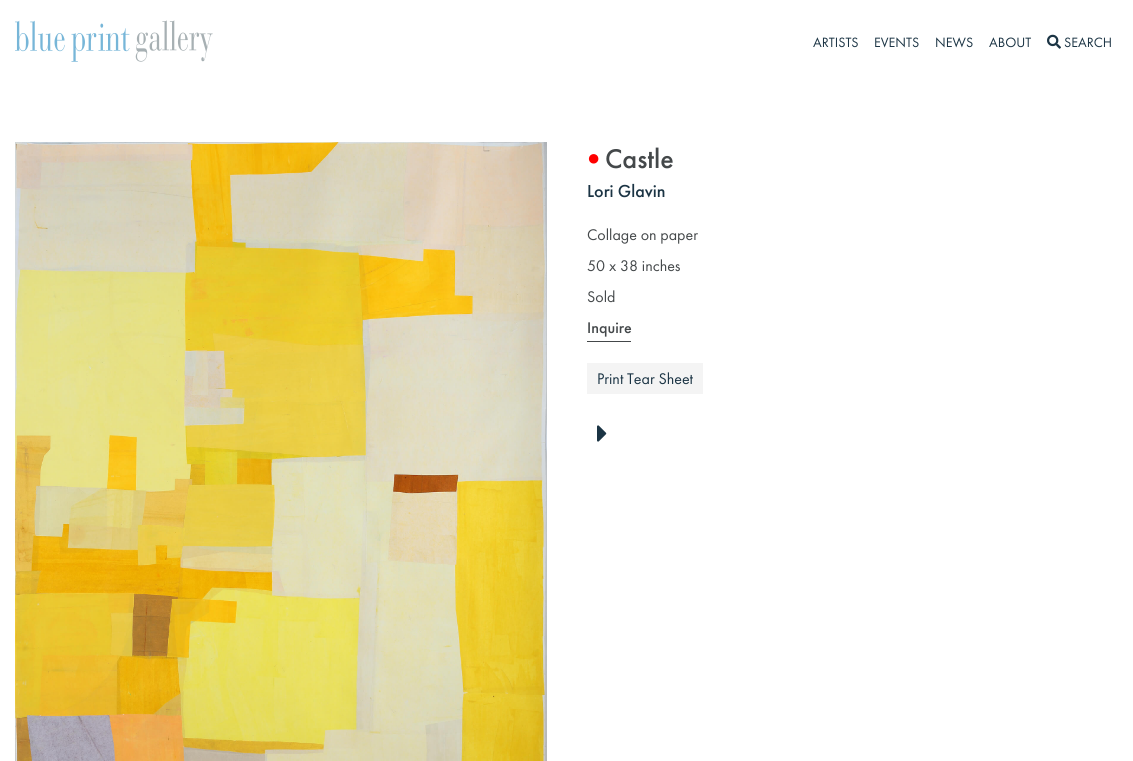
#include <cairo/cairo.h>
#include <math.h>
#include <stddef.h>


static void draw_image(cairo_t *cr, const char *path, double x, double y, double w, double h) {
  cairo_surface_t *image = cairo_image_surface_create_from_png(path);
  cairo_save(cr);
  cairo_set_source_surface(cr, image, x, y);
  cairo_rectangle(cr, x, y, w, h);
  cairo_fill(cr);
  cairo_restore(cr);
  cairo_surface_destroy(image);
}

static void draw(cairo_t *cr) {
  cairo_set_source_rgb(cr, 1, 1, 1);
  cairo_paint(cr);
  draw_image(cr, "images/1.png", 15, 20, 198, 42);
  draw_image(cr, "images/2.png", 1047, 34, 14, 15);
  draw_image(cr, "images/3.png", 15, 142, 532, 619);
  cairo_set_source_rgb(cr, 68 / 255.0, 72 / 255.0, 74 / 255.0);
  cairo_rectangle(cr, 587, 341, 44, 1);
  cairo_fill(cr);
  cairo_set_source_rgb(cr, 244 / 255.0, 244 / 255.0, 244 / 255.0);
  cairo_rectangle(cr, 587, 363, 116, 31);
  cairo_fill(cr);
  draw_image(cr, "images/4.png", 597, 425, 10, 17);
  cairo_select_font_face(cr, "Futura PT", CAIRO_FONT_SLANT_NORMAL, CAIRO_FONT_WEIGHT_NORMAL);
  cairo_set_font_size(cr, 14);
  cairo_set_source_rgb(cr, 27 / 255.0, 52 / 255.0, 68 / 255.0);
  cairo_move_to(cr, 813, 47);
  cairo_show_text(cr, "ARTISTS");
  cairo_move_to(cr, 874, 47);
  cairo_show_text(cr, "EVENTS");
  cairo_move_to(cr, 935, 47);
  cairo_show_text(cr, "NEWS");
  cairo_move_to(cr, 989, 47);
  cairo_show_text(cr, "ABOUT");
  cairo_move_to(cr, 1064, 47);
  cairo_show_text(cr, "SEARCH");
  cairo_select_font_face(cr, "Liberation Sans", CAIRO_FONT_SLANT_NORMAL, CAIRO_FONT_WEIGHT_NORMAL);
  cairo_set_font_size(cr, 22);
  cairo_set_source_rgb(cr, 1, 0, 0);
  cairo_move_to(cr, 587, 165);
  cairo_show_text(cr, "●");
  cairo_select_font_face(cr, "Futura PT Medium", CAIRO_FONT_SLANT_NORMAL, CAIRO_FONT_WEIGHT_NORMAL);
  cairo_set_font_size(cr, 28);
  cairo_set_source_rgb(cr, 68 / 255.0, 72 / 255.0, 74 / 255.0);
  cairo_move_to(cr, 605, 168);
  cairo_show_text(cr, "Castle");
  cairo_set_font_size(cr, 18);
  cairo_set_source_rgb(cr, 27 / 255.0, 52 / 255.0, 68 / 255.0);
  cairo_move_to(cr, 587, 197);
  cairo_show_text(cr, "Lori Glavin");
  cairo_select_font_face(cr, "Futura PT", CAIRO_FONT_SLANT_NORMAL, CAIRO_FONT_WEIGHT_NORMAL);
  cairo_set_font_size(cr, 16);
  cairo_set_source_rgb(cr, 68 / 255.0, 72 / 255.0, 74 / 255.0);
  cairo_move_to(cr, 587, 240);
  cairo_show_text(cr, "Collage on paper");
  cairo_move_to(cr, 587, 271);
  cairo_show_text(cr, "50 x 38 inches");
  cairo_move_to(cr, 587, 302);
  cairo_show_text(cr, "Sold");
  cairo_select_font_face(cr, "Futura PT Medium", CAIRO_FONT_SLANT_NORMAL, CAIRO_FONT_WEIGHT_NORMAL);
  cairo_move_to(cr, 587, 333);
  cairo_show_text(cr, "Inquire");
  cairo_select_font_face(cr, "Futura PT", CAIRO_FONT_SLANT_NORMAL, CAIRO_FONT_WEIGHT_NORMAL);
  cairo_set_source_rgb(cr, 27 / 255.0, 52 / 255.0, 68 / 255.0);
  cairo_move_to(cr, 597, 384);
  cairo_show_text(cr, "Print Tear Sheet");
}

int main(void) {
  cairo_surface_t *surface = cairo_image_surface_create(CAIRO_FORMAT_RGB24, 1133, 761);
  cairo_t *cr = cairo_create(surface);
  cairo_font_options_t *options = cairo_font_options_create();
  cairo_font_options_set_hint_metrics(options, CAIRO_HINT_METRICS_OFF);
  cairo_font_options_set_hint_style(options, CAIRO_HINT_STYLE_NONE);
  cairo_set_font_options(cr, options);
  cairo_set_miter_limit(cr, 4);
  draw(cr);
  cairo_surface_write_to_png(surface, "out.png");
  cairo_font_options_destroy(options);
  cairo_destroy(cr);
  cairo_surface_destroy(surface);
  return 0;
}
